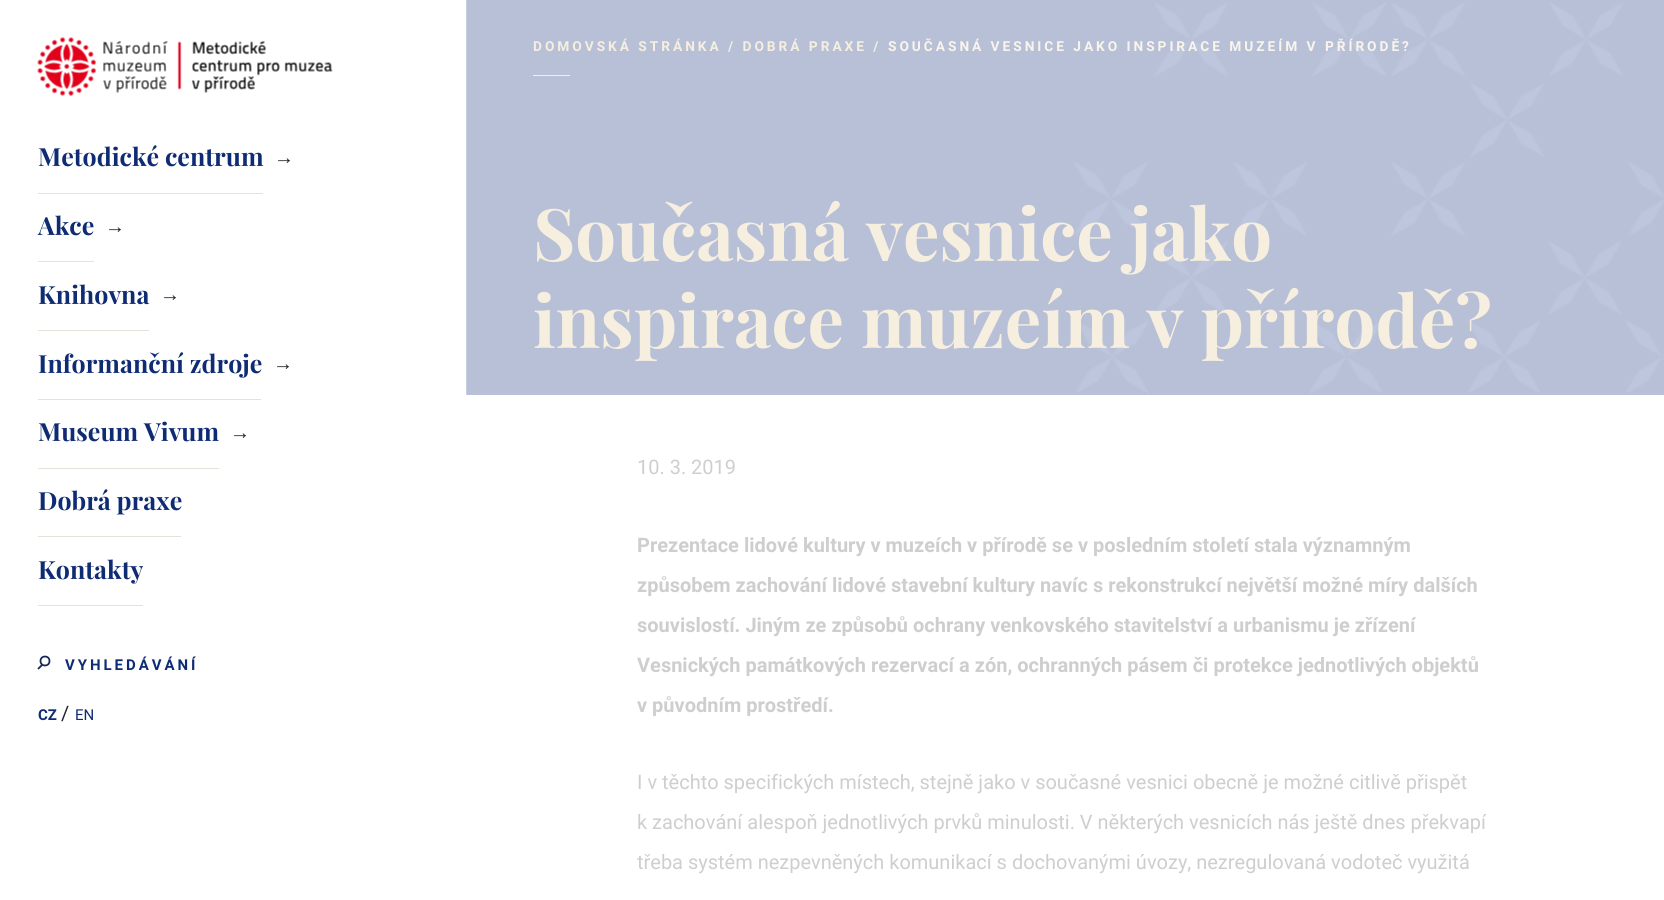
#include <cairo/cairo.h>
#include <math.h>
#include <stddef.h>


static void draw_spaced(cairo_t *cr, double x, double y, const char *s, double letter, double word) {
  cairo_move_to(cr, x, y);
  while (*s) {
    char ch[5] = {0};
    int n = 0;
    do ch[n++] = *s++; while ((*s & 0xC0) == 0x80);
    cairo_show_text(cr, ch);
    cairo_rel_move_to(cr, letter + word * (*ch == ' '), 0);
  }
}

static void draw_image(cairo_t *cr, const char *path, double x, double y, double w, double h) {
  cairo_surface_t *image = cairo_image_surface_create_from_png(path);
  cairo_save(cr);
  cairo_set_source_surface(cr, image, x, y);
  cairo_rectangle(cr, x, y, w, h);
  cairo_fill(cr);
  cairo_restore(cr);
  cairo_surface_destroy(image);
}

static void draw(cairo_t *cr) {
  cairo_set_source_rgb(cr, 1, 1, 1);
  cairo_paint(cr);
  draw_image(cr, "images/1.png", 37, 37, 296, 59);
  cairo_set_source_rgb(cr, 229 / 255.0, 226 / 255.0, 218 / 255.0);
  cairo_rectangle(cr, 38, 193, 225, 1);
  cairo_fill(cr);
  cairo_rectangle(cr, 38, 261, 56, 1);
  cairo_fill(cr);
  cairo_rectangle(cr, 38, 330, 111, 1);
  cairo_fill(cr);
  cairo_rectangle(cr, 38, 399, 223, 1);
  cairo_fill(cr);
  cairo_rectangle(cr, 38, 468, 181, 1);
  cairo_fill(cr);
  cairo_rectangle(cr, 38, 536, 143, 1);
  cairo_fill(cr);
  cairo_rectangle(cr, 38, 605, 105, 1);
  cairo_fill(cr);
  cairo_arc(cr, 45, 661, 4.5, 0, 2 * M_PI);
  cairo_set_source_rgb(cr, 25 / 255.0, 40 / 255.0, 91 / 255.0);
  cairo_set_line_width(cr, 1.8);
  cairo_stroke(cr);
  cairo_new_path(cr);
  cairo_move_to(cr, 38, 669);
  cairo_line_to(cr, 42.5, 664.5);
  cairo_stroke(cr);
  draw_image(cr, "images/2.png", 466, 0, 1198, 395);
  cairo_set_source_rgb(cr, 246 / 255.0, 238 / 255.0, 223 / 255.0);
  cairo_rectangle(cr, 533, 75, 37, 1);
  cairo_fill(cr);
  cairo_select_font_face(cr, "Playfair Display", CAIRO_FONT_SLANT_NORMAL, CAIRO_FONT_WEIGHT_BOLD);
  cairo_set_font_size(cr, 25);
  cairo_set_source_rgb(cr, 14 / 255.0, 43 / 255.0, 115 / 255.0);
  cairo_move_to(cr, 38, 166);
  cairo_show_text(cr, "Metodické centrum");
  cairo_select_font_face(cr, "Liberation Sans", CAIRO_FONT_SLANT_NORMAL, CAIRO_FONT_WEIGHT_NORMAL);
  cairo_set_font_size(cr, 20);
  cairo_set_source_rgb(cr, 33 / 255.0, 37 / 255.0, 41 / 255.0);
  cairo_move_to(cr, 274, 164);
  cairo_show_text(cr, "→");
  cairo_select_font_face(cr, "Playfair Display", CAIRO_FONT_SLANT_NORMAL, CAIRO_FONT_WEIGHT_BOLD);
  cairo_set_font_size(cr, 25);
  cairo_set_source_rgb(cr, 14 / 255.0, 43 / 255.0, 115 / 255.0);
  cairo_move_to(cr, 38, 235);
  cairo_show_text(cr, "Akce");
  cairo_select_font_face(cr, "Liberation Sans", CAIRO_FONT_SLANT_NORMAL, CAIRO_FONT_WEIGHT_NORMAL);
  cairo_set_font_size(cr, 20);
  cairo_set_source_rgb(cr, 33 / 255.0, 37 / 255.0, 41 / 255.0);
  cairo_move_to(cr, 105, 233);
  cairo_show_text(cr, "→");
  cairo_select_font_face(cr, "Playfair Display", CAIRO_FONT_SLANT_NORMAL, CAIRO_FONT_WEIGHT_BOLD);
  cairo_set_font_size(cr, 25);
  cairo_set_source_rgb(cr, 14 / 255.0, 43 / 255.0, 115 / 255.0);
  cairo_move_to(cr, 38, 304);
  cairo_show_text(cr, "Knihovna");
  cairo_select_font_face(cr, "Liberation Sans", CAIRO_FONT_SLANT_NORMAL, CAIRO_FONT_WEIGHT_NORMAL);
  cairo_set_font_size(cr, 20);
  cairo_set_source_rgb(cr, 33 / 255.0, 37 / 255.0, 41 / 255.0);
  cairo_move_to(cr, 160, 301);
  cairo_show_text(cr, "→");
  cairo_select_font_face(cr, "Playfair Display", CAIRO_FONT_SLANT_NORMAL, CAIRO_FONT_WEIGHT_BOLD);
  cairo_set_font_size(cr, 25);
  cairo_set_source_rgb(cr, 14 / 255.0, 43 / 255.0, 115 / 255.0);
  cairo_move_to(cr, 38, 373);
  cairo_show_text(cr, "Informanční zdroje");
  cairo_select_font_face(cr, "Liberation Sans", CAIRO_FONT_SLANT_NORMAL, CAIRO_FONT_WEIGHT_NORMAL);
  cairo_set_font_size(cr, 20);
  cairo_set_source_rgb(cr, 33 / 255.0, 37 / 255.0, 41 / 255.0);
  cairo_move_to(cr, 273, 370);
  cairo_show_text(cr, "→");
  cairo_select_font_face(cr, "Playfair Display", CAIRO_FONT_SLANT_NORMAL, CAIRO_FONT_WEIGHT_BOLD);
  cairo_set_font_size(cr, 25);
  cairo_set_source_rgb(cr, 14 / 255.0, 43 / 255.0, 115 / 255.0);
  cairo_move_to(cr, 38, 441);
  cairo_show_text(cr, "Museum Vivum");
  cairo_select_font_face(cr, "Liberation Sans", CAIRO_FONT_SLANT_NORMAL, CAIRO_FONT_WEIGHT_NORMAL);
  cairo_set_font_size(cr, 20);
  cairo_set_source_rgb(cr, 33 / 255.0, 37 / 255.0, 41 / 255.0);
  cairo_move_to(cr, 230, 439);
  cairo_show_text(cr, "→");
  cairo_select_font_face(cr, "Playfair Display", CAIRO_FONT_SLANT_NORMAL, CAIRO_FONT_WEIGHT_BOLD);
  cairo_set_font_size(cr, 25);
  cairo_set_source_rgb(cr, 14 / 255.0, 43 / 255.0, 115 / 255.0);
  cairo_move_to(cr, 38, 510);
  cairo_show_text(cr, "Dobrá praxe");
  cairo_move_to(cr, 38, 579);
  cairo_show_text(cr, "Kontakty");
  cairo_select_font_face(cr, "Roboto", CAIRO_FONT_SLANT_NORMAL, CAIRO_FONT_WEIGHT_BOLD);
  cairo_set_font_size(cr, 15);
  draw_spaced(cr, 65, 670, "VYHLEDÁVÁNÍ", 2.95, 0);
  cairo_move_to(cr, 38, 720);
  cairo_show_text(cr, "CZ");
  cairo_select_font_face(cr, "Roboto", CAIRO_FONT_SLANT_NORMAL, CAIRO_FONT_WEIGHT_NORMAL);
  cairo_set_font_size(cr, 20);
  cairo_set_source_rgb(cr, 33 / 255.0, 37 / 255.0, 41 / 255.0);
  cairo_move_to(cr, 61, 720);
  cairo_show_text(cr, "/");
  cairo_set_font_size(cr, 15);
  cairo_set_source_rgb(cr, 14 / 255.0, 43 / 255.0, 115 / 255.0);
  cairo_move_to(cr, 75, 720);
  cairo_show_text(cr, "EN");
  cairo_select_font_face(cr, "Roboto", CAIRO_FONT_SLANT_NORMAL, CAIRO_FONT_WEIGHT_BOLD);
  cairo_set_font_size(cr, 13.75);
  cairo_set_source_rgb(cr, 246 / 255.0, 238 / 255.0, 223 / 255.0);
  draw_spaced(cr, 533, 51, "DOMOVSKÁ STRÁNKA / DOBRÁ PRAXE /", 2.95, 0);
  cairo_set_source_rgb(cr, 250 / 255.0, 245 / 255.0, 236 / 255.0);
  draw_spaced(cr, 888, 51, "SOUČASNÁ VESNICE JAKO INSPIRACE MUZEÍM V PŘÍRODĚ?", 2.95, 0);
  cairo_select_font_face(cr, "Playfair Display", CAIRO_FONT_SLANT_NORMAL, CAIRO_FONT_WEIGHT_BOLD);
  cairo_set_font_size(cr, 72.5);
  cairo_set_source_rgb(cr, 246 / 255.0, 238 / 255.0, 223 / 255.0);
  cairo_move_to(cr, 533, 261);
  cairo_show_text(cr, "Současná vesnice jako");
  cairo_move_to(cr, 533, 348);
  cairo_show_text(cr, "inspirace muzeím v přírodě?");
  cairo_select_font_face(cr, "Roboto", CAIRO_FONT_SLANT_NORMAL, CAIRO_FONT_WEIGHT_NORMAL);
  cairo_set_font_size(cr, 20);
  cairo_set_source_rgb(cr, 207 / 255.0, 206 / 255.0, 206 / 255.0);
  cairo_move_to(cr, 637, 474);
  cairo_show_text(cr, "10. 3. 2019");
  cairo_select_font_face(cr, "Roboto", CAIRO_FONT_SLANT_NORMAL, CAIRO_FONT_WEIGHT_BOLD);
  cairo_move_to(cr, 637, 552);
  cairo_show_text(cr, "Prezentace lidové kultury v muzeích v přírodě se v posledním století stala významným");
  cairo_move_to(cr, 637, 592);
  cairo_show_text(cr, "způsobem zachování lidové stavební kultury navíc s rekonstrukcí největší možné míry dalších");
  cairo_move_to(cr, 637, 632);
  cairo_show_text(cr, "souvislostí. Jiným ze způsobů ochrany venkovského stavitelství a urbanismu je zřízení");
  cairo_move_to(cr, 637, 672);
  cairo_show_text(cr, "Vesnických památkových rezervací a zón, ochranných pásem či protekce jednotlivých objektů");
  cairo_move_to(cr, 637, 712);
  cairo_show_text(cr, "v původním prostředí.");
  cairo_select_font_face(cr, "Roboto", CAIRO_FONT_SLANT_NORMAL, CAIRO_FONT_WEIGHT_NORMAL);
  cairo_move_to(cr, 637, 789);
  cairo_show_text(cr, "I v těchto specifických místech, stejně jako v současné vesnici obecně je možné citlivě přispět");
  cairo_move_to(cr, 637, 829);
  cairo_show_text(cr, "k zachování alespoň jednotlivých prvků minulosti. V některých vesnicích nás ještě dnes překvapí");
  cairo_move_to(cr, 637, 869);
  cairo_show_text(cr, "třeba systém nezpevněných komunikací s dochovanými úvozy, nezregulovaná vodoteč využitá");
}

int main(void) {
  cairo_surface_t *surface = cairo_image_surface_create(CAIRO_FORMAT_RGB24, 1664, 900);
  cairo_t *cr = cairo_create(surface);
  cairo_font_options_t *options = cairo_font_options_create();
  cairo_font_options_set_hint_metrics(options, CAIRO_HINT_METRICS_OFF);
  cairo_font_options_set_hint_style(options, CAIRO_HINT_STYLE_NONE);
  cairo_set_font_options(cr, options);
  cairo_set_miter_limit(cr, 4);
  draw(cr);
  cairo_surface_write_to_png(surface, "out.png");
  cairo_font_options_destroy(options);
  cairo_destroy(cr);
  cairo_surface_destroy(surface);
  return 0;
}
